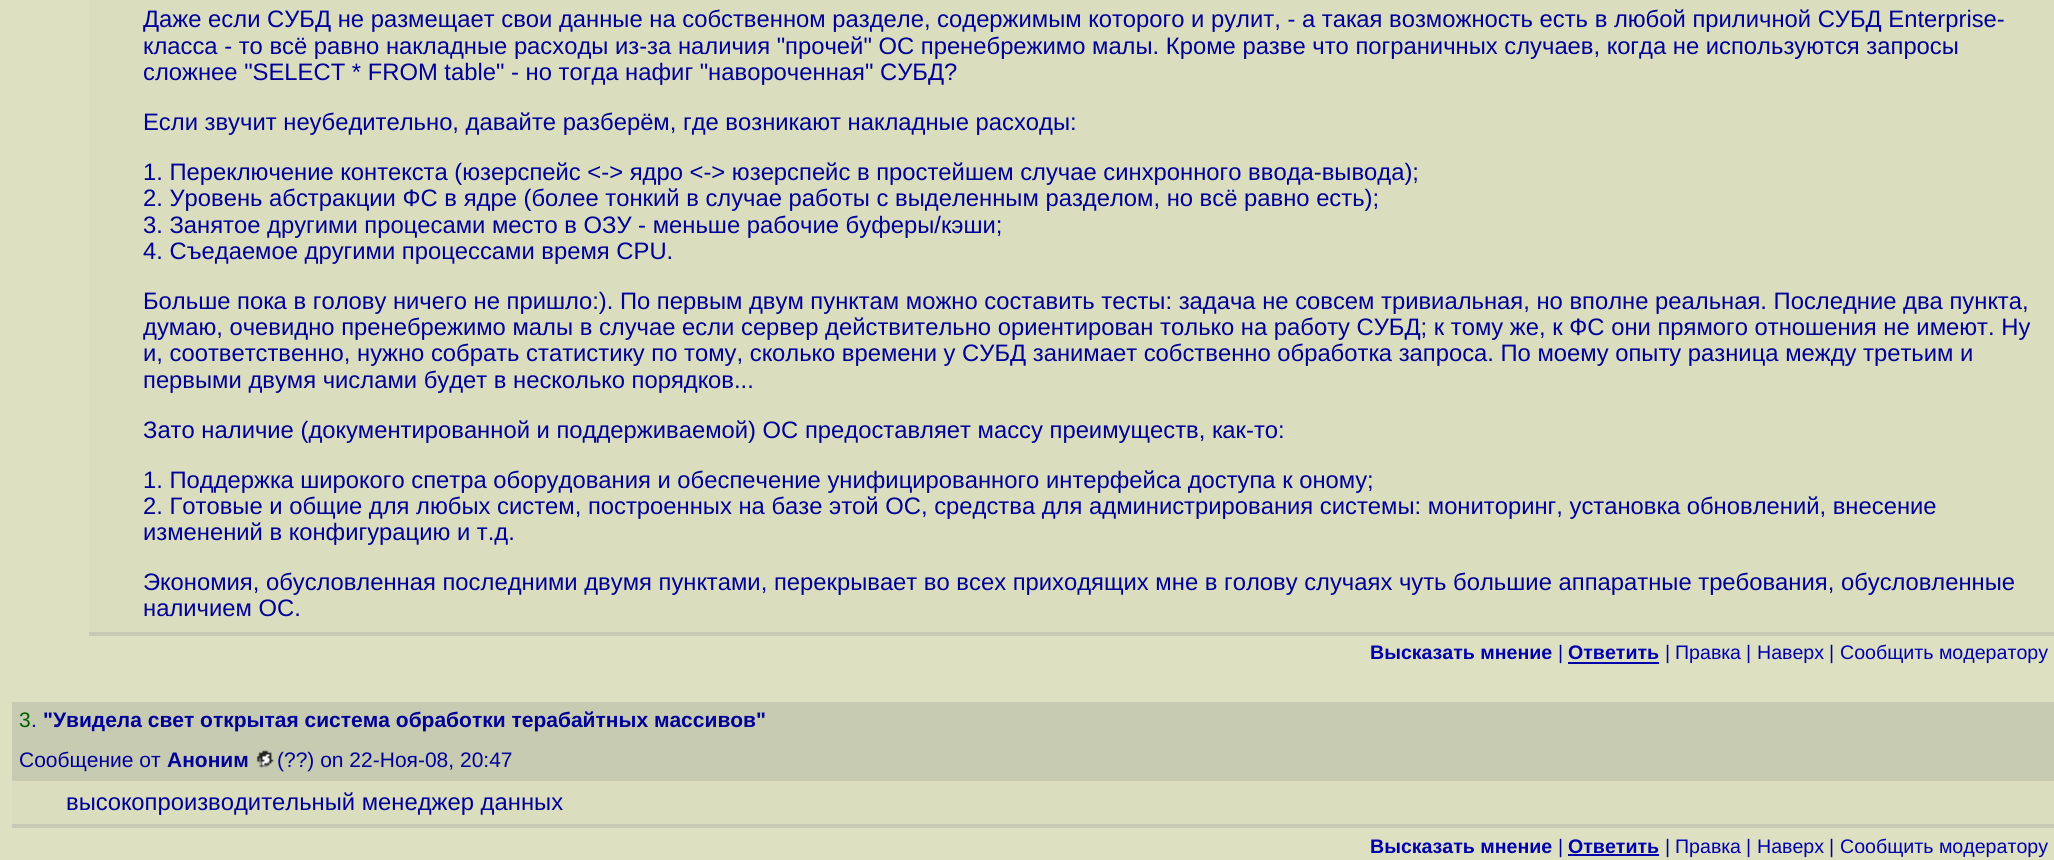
#include <cairo/cairo.h>
#include <math.h>
#include <stddef.h>


static void draw_image(cairo_t *cr, const char *path, double x, double y, double w, double h) {
  cairo_surface_t *image = cairo_image_surface_create_from_png(path);
  cairo_save(cr);
  cairo_set_source_surface(cr, image, x, y);
  cairo_rectangle(cr, x, y, w, h);
  cairo_fill(cr);
  cairo_restore(cr);
  cairo_surface_destroy(image);
}

static void draw(cairo_t *cr) {
  cairo_set_source_rgb(cr, 221 / 255.0, 225 / 255.0, 194 / 255.0);
  cairo_paint(cr);
  cairo_set_source_rgb(cr, 218 / 255.0, 222 / 255.0, 191 / 255.0);
  cairo_rectangle(cr, 89, 0, 1965, 632);
  cairo_fill(cr);
  cairo_set_source_rgb(cr, 201 / 255.0, 202 / 255.0, 182 / 255.0);
  cairo_rectangle(cr, 89, 632, 1965, 4);
  cairo_fill(cr);
  cairo_set_source_rgb(cr, 0, 0, 173 / 255.0);
  cairo_rectangle(cr, 1568, 662, 91, 2);
  cairo_fill(cr);
  cairo_set_source_rgb(cr, 199 / 255.0, 203 / 255.0, 177 / 255.0);
  cairo_rectangle(cr, 12, 702, 2042, 79);
  cairo_fill(cr);
  draw_image(cr, "images/1.png", 256, 750, 18, 18);
  cairo_set_source_rgb(cr, 218 / 255.0, 222 / 255.0, 191 / 255.0);
  cairo_rectangle(cr, 12, 781, 2042, 43);
  cairo_fill(cr);
  cairo_set_source_rgb(cr, 201 / 255.0, 202 / 255.0, 182 / 255.0);
  cairo_rectangle(cr, 12, 824, 2042, 4);
  cairo_fill(cr);
  cairo_set_source_rgb(cr, 0, 0, 173 / 255.0);
  cairo_rectangle(cr, 1568, 854, 91, 2);
  cairo_fill(cr);
  cairo_select_font_face(cr, "Liberation Sans", CAIRO_FONT_SLANT_NORMAL, CAIRO_FONT_WEIGHT_NORMAL);
  cairo_set_font_size(cr, 23.8);
  cairo_set_source_rgb(cr, 0, 0, 153 / 255.0);
  cairo_move_to(cr, 143, 27);
  cairo_show_text(cr, "Даже если СУБД не размещает свои данные на собственном разделе, содержимым которого и рулит, - а такая возможность есть в любой приличной СУБД Enterprise-");
  cairo_move_to(cr, 143, 54);
  cairo_show_text(cr, "класса - то всё равно накладные расходы из-за наличия \"прочей\" ОС пренебрежимо малы. Кроме разве что пограничных случаев, когда не используются запросы");
  cairo_move_to(cr, 143, 80);
  cairo_show_text(cr, "сложнее \"SELECT * FROM table\" - но тогда нафиг \"навороченная\" СУБД?");
  cairo_move_to(cr, 143, 130);
  cairo_show_text(cr, "Если звучит неубедительно, давайте разберём, где возникают накладные расходы:");
  cairo_move_to(cr, 143, 180);
  cairo_show_text(cr, "1. Переключение контекста (юзерспейс <-> ядро <-> юзерспейс в простейшем случае синхронного ввода-вывода);");
  cairo_move_to(cr, 143, 206);
  cairo_show_text(cr, "2. Уровень абстракции ФС в ядре (более тонкий в случае работы с выделенным разделом, но всё равно есть);");
  cairo_move_to(cr, 143, 233);
  cairo_show_text(cr, "3. Занятое другими процесами место в ОЗУ - меньше рабочие буферы/кэши;");
  cairo_move_to(cr, 143, 259);
  cairo_show_text(cr, "4. Съедаемое другими процессами время CPU.");
  cairo_move_to(cr, 143, 309);
  cairo_show_text(cr, "Больше пока в голову ничего не пришло:). По первым двум пунктам можно составить тесты: задача не совсем тривиальная, но вполне реальная. Последние два пункта,");
  cairo_move_to(cr, 143, 335);
  cairo_show_text(cr, "думаю, очевидно пренебрежимо малы в случае если сервер действительно ориентирован только на работу СУБД; к тому же, к ФС они прямого отношения не имеют. Ну");
  cairo_move_to(cr, 143, 361);
  cairo_show_text(cr, "и, соответственно, нужно собрать статистику по тому, сколько времени у СУБД занимает собственно обработка запроса. По моему опыту разница между третьим и");
  cairo_move_to(cr, 143, 388);
  cairo_show_text(cr, "первыми двумя числами будет в несколько порядков...");
  cairo_move_to(cr, 143, 438);
  cairo_show_text(cr, "Зато наличие (документированной и поддерживаемой) ОС предоставляет массу преимуществ, как-то:");
  cairo_move_to(cr, 143, 488);
  cairo_show_text(cr, "1. Поддержка широкого спетра оборудования и обеспечение унифицированного интерфейса доступа к оному;");
  cairo_move_to(cr, 143, 514);
  cairo_show_text(cr, "2. Готовые и общие для любых систем, построенных на базе этой ОС, средства для администрирования системы: мониторинг, установка обновлений, внесение");
  cairo_move_to(cr, 143, 540);
  cairo_show_text(cr, "изменений в конфигурацию и т.д.");
  cairo_move_to(cr, 143, 590);
  cairo_show_text(cr, "Экономия, обусловленная последними двумя пунктами, перекрывает во всех приходящих мне в голову случаях чуть большие аппаратные требования, обусловленные");
  cairo_move_to(cr, 143, 616);
  cairo_show_text(cr, "наличием ОС.");
  cairo_select_font_face(cr, "Liberation Sans", CAIRO_FONT_SLANT_NORMAL, CAIRO_FONT_WEIGHT_BOLD);
  cairo_set_font_size(cr, 19.6);
  cairo_set_source_rgb(cr, 0, 0, 173 / 255.0);
  cairo_move_to(cr, 1370, 659);
  cairo_show_text(cr, "Высказать мнение");
  cairo_select_font_face(cr, "Liberation Sans", CAIRO_FONT_SLANT_NORMAL, CAIRO_FONT_WEIGHT_NORMAL);
  cairo_set_source_rgb(cr, 0, 0, 153 / 255.0);
  cairo_move_to(cr, 1558, 659);
  cairo_show_text(cr, "|");
  cairo_select_font_face(cr, "Liberation Sans", CAIRO_FONT_SLANT_NORMAL, CAIRO_FONT_WEIGHT_BOLD);
  cairo_set_source_rgb(cr, 0, 0, 173 / 255.0);
  cairo_move_to(cr, 1568, 659);
  cairo_show_text(cr, "Ответить");
  cairo_select_font_face(cr, "Liberation Sans", CAIRO_FONT_SLANT_NORMAL, CAIRO_FONT_WEIGHT_NORMAL);
  cairo_set_source_rgb(cr, 0, 0, 153 / 255.0);
  cairo_move_to(cr, 1665, 659);
  cairo_show_text(cr, "|");
  cairo_set_source_rgb(cr, 0, 0, 173 / 255.0);
  cairo_move_to(cr, 1675, 659);
  cairo_show_text(cr, "Правка");
  cairo_set_source_rgb(cr, 0, 0, 153 / 255.0);
  cairo_move_to(cr, 1746, 659);
  cairo_show_text(cr, "|");
  cairo_set_source_rgb(cr, 0, 0, 173 / 255.0);
  cairo_move_to(cr, 1757, 659);
  cairo_show_text(cr, "Наверх");
  cairo_set_source_rgb(cr, 0, 0, 153 / 255.0);
  cairo_move_to(cr, 1829, 659);
  cairo_show_text(cr, "|");
  cairo_set_source_rgb(cr, 0, 0, 173 / 255.0);
  cairo_move_to(cr, 1840, 659);
  cairo_show_text(cr, "Cообщить модератору");
  cairo_set_font_size(cr, 21);
  cairo_set_source_rgb(cr, 0, 96 / 255.0, 0);
  cairo_move_to(cr, 19, 727);
  cairo_show_text(cr, "3");
  cairo_set_source_rgb(cr, 0, 0, 153 / 255.0);
  cairo_move_to(cr, 31, 727);
  cairo_show_text(cr, ".");
  cairo_select_font_face(cr, "Liberation Sans", CAIRO_FONT_SLANT_NORMAL, CAIRO_FONT_WEIGHT_BOLD);
  cairo_move_to(cr, 43, 727);
  cairo_show_text(cr, "\"Увидела свет открытая система обработки терабайтных массивов\"");
  cairo_select_font_face(cr, "Liberation Sans", CAIRO_FONT_SLANT_NORMAL, CAIRO_FONT_WEIGHT_NORMAL);
  cairo_move_to(cr, 19, 767);
  cairo_show_text(cr, "Сообщение от");
  cairo_select_font_face(cr, "Liberation Sans", CAIRO_FONT_SLANT_NORMAL, CAIRO_FONT_WEIGHT_BOLD);
  cairo_move_to(cr, 167, 767);
  cairo_show_text(cr, "Аноним");
  cairo_select_font_face(cr, "Liberation Sans", CAIRO_FONT_SLANT_NORMAL, CAIRO_FONT_WEIGHT_NORMAL);
  cairo_move_to(cr, 277, 767);
  cairo_show_text(cr, "(?\077) on 22-Ноя-08, 20:47");
  cairo_set_font_size(cr, 23.8);
  cairo_move_to(cr, 66, 810);
  cairo_show_text(cr, "высокопроизводительный менеджер данных");
  cairo_select_font_face(cr, "Liberation Sans", CAIRO_FONT_SLANT_NORMAL, CAIRO_FONT_WEIGHT_BOLD);
  cairo_set_font_size(cr, 19.6);
  cairo_set_source_rgb(cr, 0, 0, 173 / 255.0);
  cairo_move_to(cr, 1370, 853);
  cairo_show_text(cr, "Высказать мнение");
  cairo_select_font_face(cr, "Liberation Sans", CAIRO_FONT_SLANT_NORMAL, CAIRO_FONT_WEIGHT_NORMAL);
  cairo_set_source_rgb(cr, 0, 0, 153 / 255.0);
  cairo_move_to(cr, 1558, 853);
  cairo_show_text(cr, "|");
  cairo_select_font_face(cr, "Liberation Sans", CAIRO_FONT_SLANT_NORMAL, CAIRO_FONT_WEIGHT_BOLD);
  cairo_set_source_rgb(cr, 0, 0, 173 / 255.0);
  cairo_move_to(cr, 1568, 853);
  cairo_show_text(cr, "Ответить");
  cairo_select_font_face(cr, "Liberation Sans", CAIRO_FONT_SLANT_NORMAL, CAIRO_FONT_WEIGHT_NORMAL);
  cairo_set_source_rgb(cr, 0, 0, 153 / 255.0);
  cairo_move_to(cr, 1665, 853);
  cairo_show_text(cr, "|");
  cairo_set_source_rgb(cr, 0, 0, 173 / 255.0);
  cairo_move_to(cr, 1675, 853);
  cairo_show_text(cr, "Правка");
  cairo_set_source_rgb(cr, 0, 0, 153 / 255.0);
  cairo_move_to(cr, 1746, 853);
  cairo_show_text(cr, "|");
  cairo_set_source_rgb(cr, 0, 0, 173 / 255.0);
  cairo_move_to(cr, 1757, 853);
  cairo_show_text(cr, "Наверх");
  cairo_set_source_rgb(cr, 0, 0, 153 / 255.0);
  cairo_move_to(cr, 1829, 853);
  cairo_show_text(cr, "|");
  cairo_set_source_rgb(cr, 0, 0, 173 / 255.0);
  cairo_move_to(cr, 1840, 853);
  cairo_show_text(cr, "Cообщить модератору");
}

int main(void) {
  cairo_surface_t *surface = cairo_image_surface_create(CAIRO_FORMAT_RGB24, 2054, 860);
  cairo_t *cr = cairo_create(surface);
  cairo_font_options_t *options = cairo_font_options_create();
  cairo_font_options_set_hint_metrics(options, CAIRO_HINT_METRICS_OFF);
  cairo_font_options_set_hint_style(options, CAIRO_HINT_STYLE_NONE);
  cairo_set_font_options(cr, options);
  cairo_set_miter_limit(cr, 4);
  draw(cr);
  cairo_surface_write_to_png(surface, "out.png");
  cairo_font_options_destroy(options);
  cairo_destroy(cr);
  cairo_surface_destroy(surface);
  return 0;
}
